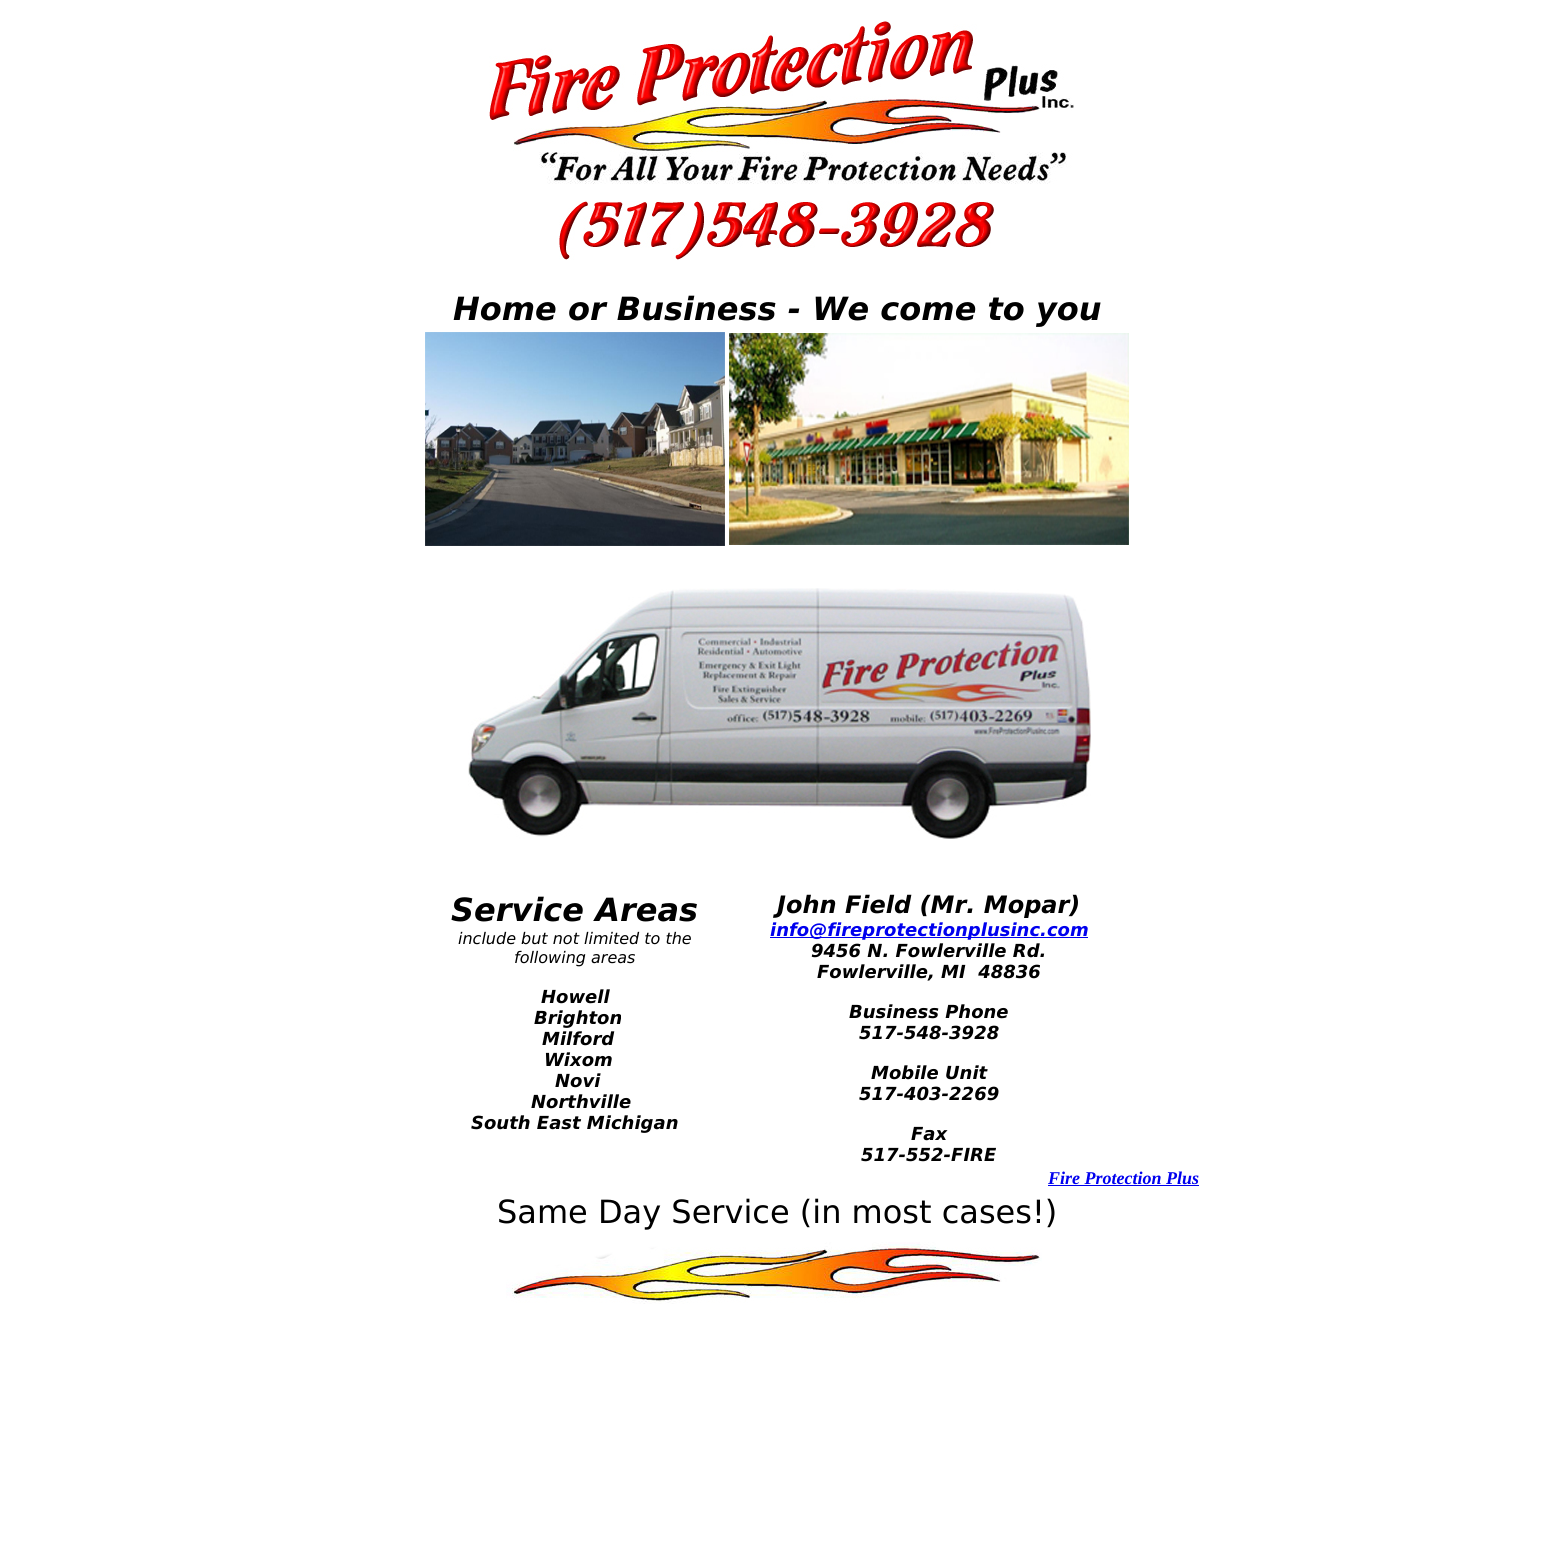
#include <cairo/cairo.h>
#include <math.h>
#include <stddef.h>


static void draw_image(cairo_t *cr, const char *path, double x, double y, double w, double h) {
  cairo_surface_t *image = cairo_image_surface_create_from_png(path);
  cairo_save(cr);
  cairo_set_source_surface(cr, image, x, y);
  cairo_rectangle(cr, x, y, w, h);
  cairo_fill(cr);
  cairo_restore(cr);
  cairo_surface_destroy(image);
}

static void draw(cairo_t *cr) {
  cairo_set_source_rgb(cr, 1, 1, 1);
  cairo_paint(cr);
  draw_image(cr, "images/1.png", 489, 21, 585, 163);
  draw_image(cr, "images/2.png", 559, 201, 435, 59);
  draw_image(cr, "images/3.png", 425, 332, 300, 214);
  draw_image(cr, "images/4.png", 729, 333, 400, 212);
  draw_image(cr, "images/5.png", 468, 588, 623, 251);
  cairo_set_source_rgb(cr, 0, 0, 238 / 255.0);
  cairo_rectangle(cr, 770, 937, 318, 1);
  cairo_fill(cr);
  cairo_rectangle(cr, 1048, 1185, 151, 1);
  cairo_fill(cr);
  draw_image(cr, "images/6.png", 506, 1242, 536, 62);
  cairo_select_font_face(cr, "DejaVu Sans", CAIRO_FONT_SLANT_ITALIC, CAIRO_FONT_WEIGHT_BOLD);
  cairo_set_font_size(cr, 32);
  cairo_set_source_rgb(cr, 0, 0, 0);
  cairo_move_to(cr, 453, 320);
  cairo_show_text(cr, "Home or Business - We come to you");
  cairo_move_to(cr, 451, 921);
  cairo_show_text(cr, "Service Areas");
  cairo_select_font_face(cr, "DejaVu Sans", CAIRO_FONT_SLANT_ITALIC, CAIRO_FONT_WEIGHT_NORMAL);
  cairo_set_font_size(cr, 16);
  cairo_move_to(cr, 458, 944);
  cairo_show_text(cr, "include but not limited to the");
  cairo_move_to(cr, 514, 963);
  cairo_show_text(cr, "following areas");
  cairo_select_font_face(cr, "DejaVu Sans", CAIRO_FONT_SLANT_ITALIC, CAIRO_FONT_WEIGHT_BOLD);
  cairo_set_font_size(cr, 18);
  cairo_move_to(cr, 541, 1003);
  cairo_show_text(cr, "Howell");
  cairo_move_to(cr, 534, 1024);
  cairo_show_text(cr, "Brighton");
  cairo_move_to(cr, 542, 1045);
  cairo_show_text(cr, "Milford");
  cairo_move_to(cr, 544, 1066);
  cairo_show_text(cr, "Wixom");
  cairo_move_to(cr, 555, 1087);
  cairo_show_text(cr, "Novi");
  cairo_move_to(cr, 531, 1108);
  cairo_show_text(cr, "Northville");
  cairo_move_to(cr, 471, 1129);
  cairo_show_text(cr, "South East Michigan");
  cairo_set_font_size(cr, 24);
  cairo_move_to(cr, 777, 913);
  cairo_show_text(cr, "John Field (Mr. Mopar)");
  cairo_set_font_size(cr, 18);
  cairo_set_source_rgb(cr, 0, 0, 238 / 255.0);
  cairo_move_to(cr, 770, 936);
  cairo_show_text(cr, "info@fireprotectionplusinc.com");
  cairo_set_source_rgb(cr, 0, 0, 0);
  cairo_move_to(cr, 811, 957);
  cairo_show_text(cr, "9456 N. Fowlerville Rd.");
  cairo_move_to(cr, 817, 978);
  cairo_show_text(cr, "Fowlerville, MI  48836");
  cairo_move_to(cr, 849, 1018);
  cairo_show_text(cr, "Business Phone");
  cairo_move_to(cr, 859, 1039);
  cairo_show_text(cr, "517-548-3928");
  cairo_move_to(cr, 871, 1079);
  cairo_show_text(cr, "Mobile Unit");
  cairo_move_to(cr, 859, 1100);
  cairo_show_text(cr, "517-403-2269");
  cairo_move_to(cr, 911, 1140);
  cairo_show_text(cr, "Fax");
  cairo_move_to(cr, 861, 1161);
  cairo_show_text(cr, "517-552-FIRE");
  cairo_select_font_face(cr, "Liberation Serif", CAIRO_FONT_SLANT_ITALIC, CAIRO_FONT_WEIGHT_BOLD);
  cairo_set_source_rgb(cr, 0, 0, 238 / 255.0);
  cairo_move_to(cr, 1048, 1184);
  cairo_show_text(cr, "Fire Protection Plus");
  cairo_select_font_face(cr, "DejaVu Sans", CAIRO_FONT_SLANT_NORMAL, CAIRO_FONT_WEIGHT_NORMAL);
  cairo_set_font_size(cr, 32);
  cairo_set_source_rgb(cr, 0, 0, 0);
  cairo_move_to(cr, 497, 1223);
  cairo_show_text(cr, "Same Day Service (in most cases!)");
}

int main(void) {
  cairo_surface_t *surface = cairo_image_surface_create(CAIRO_FORMAT_RGB24, 1554, 1554);
  cairo_t *cr = cairo_create(surface);
  cairo_font_options_t *options = cairo_font_options_create();
  cairo_font_options_set_hint_metrics(options, CAIRO_HINT_METRICS_OFF);
  cairo_font_options_set_hint_style(options, CAIRO_HINT_STYLE_NONE);
  cairo_set_font_options(cr, options);
  cairo_set_miter_limit(cr, 4);
  draw(cr);
  cairo_surface_write_to_png(surface, "out.png");
  cairo_font_options_destroy(options);
  cairo_destroy(cr);
  cairo_surface_destroy(surface);
  return 0;
}
